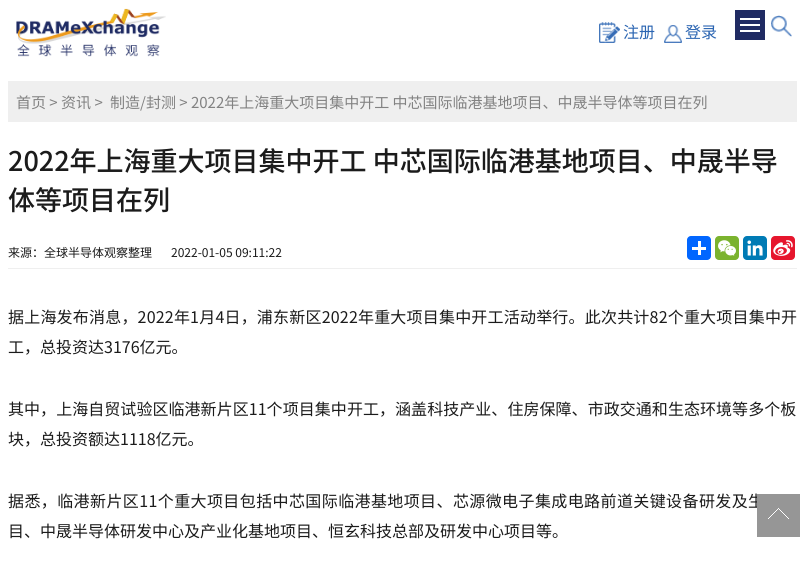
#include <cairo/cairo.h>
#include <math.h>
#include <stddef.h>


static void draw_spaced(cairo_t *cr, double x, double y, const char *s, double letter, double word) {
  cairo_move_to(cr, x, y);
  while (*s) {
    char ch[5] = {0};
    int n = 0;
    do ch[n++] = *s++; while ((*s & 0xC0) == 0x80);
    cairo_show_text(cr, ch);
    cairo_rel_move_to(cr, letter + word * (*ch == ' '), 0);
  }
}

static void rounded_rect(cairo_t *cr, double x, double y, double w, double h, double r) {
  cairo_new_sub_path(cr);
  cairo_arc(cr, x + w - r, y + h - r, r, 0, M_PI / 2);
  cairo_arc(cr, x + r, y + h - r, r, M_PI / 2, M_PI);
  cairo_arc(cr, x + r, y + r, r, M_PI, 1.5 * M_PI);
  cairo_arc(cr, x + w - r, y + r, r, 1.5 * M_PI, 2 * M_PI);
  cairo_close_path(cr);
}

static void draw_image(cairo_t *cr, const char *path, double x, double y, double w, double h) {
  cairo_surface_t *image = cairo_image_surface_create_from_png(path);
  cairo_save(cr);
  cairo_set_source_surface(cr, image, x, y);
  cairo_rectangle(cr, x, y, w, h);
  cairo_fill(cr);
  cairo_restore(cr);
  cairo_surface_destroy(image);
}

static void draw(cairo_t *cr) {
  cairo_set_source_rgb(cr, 1, 1, 1);
  cairo_paint(cr);
  draw_image(cr, "images/1.png", 16, 8, 150, 49);
  draw_image(cr, "images/2.png", 599, 22, 21, 21);
  draw_image(cr, "images/3.png", 664, 25, 18, 18);
  cairo_set_source_rgb(cr, 32 / 255.0, 43 / 255.0, 99 / 255.0);
  cairo_rectangle(cr, 735, 10, 30, 30);
  cairo_fill(cr);
  cairo_set_source_rgb(cr, 1, 1, 1);
  cairo_rectangle(cr, 740, 18, 20, 2);
  cairo_fill(cr);
  cairo_rectangle(cr, 740, 24, 20, 2);
  cairo_fill(cr);
  cairo_rectangle(cr, 740, 30, 20, 2);
  cairo_fill(cr);
  draw_image(cr, "images/4.png", 771, 15, 21, 22);
  cairo_set_source_rgb(cr, 239 / 255.0, 239 / 255.0, 239 / 255.0);
  cairo_rectangle(cr, 8, 81, 789, 41);
  cairo_fill(cr);
  cairo_rectangle(cr, 8, 268, 789, 1);
  cairo_fill(cr);
  cairo_set_source_rgb(cr, 1 / 255.0, 102 / 255.0, 1);
  rounded_rect(cr, 687, 236, 24, 24, 4);
  cairo_fill(cr);
  cairo_set_source_rgb(cr, 1, 1, 1);
  cairo_rectangle(cr, 698, 241, 3, 14);
  cairo_fill(cr);
  cairo_rectangle(cr, 692, 247, 14, 3);
  cairo_fill(cr);
  cairo_set_source_rgb(cr, 123 / 255.0, 179 / 255.0, 46 / 255.0);
  rounded_rect(cr, 715, 236, 24, 24, 4);
  cairo_fill(cr);
  draw_image(cr, "images/5.png", 718, 240, 18, 16);
  cairo_set_source_rgb(cr, 0, 123 / 255.0, 181 / 255.0);
  rounded_rect(cr, 743, 236, 24, 24, 4);
  cairo_fill(cr);
  draw_image(cr, "images/6.png", 747, 240, 16, 16);
  cairo_set_source_rgb(cr, 230 / 255.0, 22 / 255.0, 45 / 255.0);
  rounded_rect(cr, 771, 236, 24, 24, 4);
  cairo_fill(cr);
  draw_image(cr, "images/7.png", 773, 240, 20, 16);
  cairo_select_font_face(cr, "Noto Sans SC", CAIRO_FONT_SLANT_NORMAL, CAIRO_FONT_WEIGHT_NORMAL);
  cairo_set_font_size(cr, 16);
  cairo_set_source_rgb(cr, 43 / 255.0, 101 / 255.0, 178 / 255.0);
  cairo_move_to(cr, 623, 38);
  cairo_show_text(cr, "注册");
  cairo_move_to(cr, 685, 38);
  cairo_show_text(cr, "登录");
  cairo_set_font_size(cr, 15);
  cairo_set_source_rgb(cr, 130 / 255.0, 130 / 255.0, 130 / 255.0);
  cairo_move_to(cr, 16, 108);
  cairo_show_text(cr, "首页 > 资讯 >");
  cairo_move_to(cr, 110, 108);
  cairo_show_text(cr, "制造/封测 > 2022年上海重大项目集中开工 中芯国际临港基地项目、中晟半导体等项目在列");
  cairo_select_font_face(cr, "Noto Sans SC Medium", CAIRO_FONT_SLANT_NORMAL, CAIRO_FONT_WEIGHT_NORMAL);
  cairo_set_font_size(cr, 27);
  cairo_set_source_rgb(cr, 27 / 255.0, 27 / 255.0, 27 / 255.0);
  cairo_move_to(cr, 8, 171);
  cairo_show_text(cr, "2022年上海重大项目集中开工 中芯国际临港基地项目、中晟半导");
  cairo_move_to(cr, 8, 210);
  cairo_show_text(cr, "体等项目在列");
  cairo_select_font_face(cr, "Noto Sans SC", CAIRO_FONT_SLANT_NORMAL, CAIRO_FONT_WEIGHT_NORMAL);
  cairo_set_font_size(cr, 12);
  cairo_move_to(cr, 8, 257);
  cairo_show_text(cr, "来源：全球半导体观察整理");
  cairo_move_to(cr, 171, 257);
  cairo_show_text(cr, "2022-01-05 09:11:22");
  cairo_set_font_size(cr, 16);
  draw_spaced(cr, 8, 323, "据上海发布消息，2022年1月4日，浦东新区2022年重大项目集中开工活动举行。此次共计82个重大项目集中开", 0.2, 0);
  cairo_move_to(cr, 8, 353);
  cairo_show_text(cr, "工，总投资达3176亿元。");
  draw_spaced(cr, 8, 415, "其中，上海自贸试验区临港新片区11个项目集中开工，涵盖科技产业、住房保障、市政交通和生态环境等多个板", 0.05, 0);
  cairo_move_to(cr, 8, 445);
  cairo_show_text(cr, "块，总投资额达1118亿元。");
  draw_spaced(cr, 8, 507, "据悉，临港新片区11个重大项目包括中芯国际临港基地项目、芯源微电子集成电路前道关键设备研发及生", 0.4, 0);
  cairo_move_to(cr, 8, 537);
  cairo_show_text(cr, "目、中晟半导体研发中心及产业化基地项目、恒玄科技总部及研发中心项目等。");
  draw_image(cr, "images/8.png", 757, 494, 43, 43);
}

int main(void) {
  cairo_surface_t *surface = cairo_image_surface_create(CAIRO_FORMAT_RGB24, 805, 567);
  cairo_t *cr = cairo_create(surface);
  cairo_font_options_t *options = cairo_font_options_create();
  cairo_font_options_set_hint_metrics(options, CAIRO_HINT_METRICS_OFF);
  cairo_font_options_set_hint_style(options, CAIRO_HINT_STYLE_NONE);
  cairo_set_font_options(cr, options);
  cairo_set_miter_limit(cr, 4);
  draw(cr);
  cairo_surface_write_to_png(surface, "out.png");
  cairo_font_options_destroy(options);
  cairo_destroy(cr);
  cairo_surface_destroy(surface);
  return 0;
}
